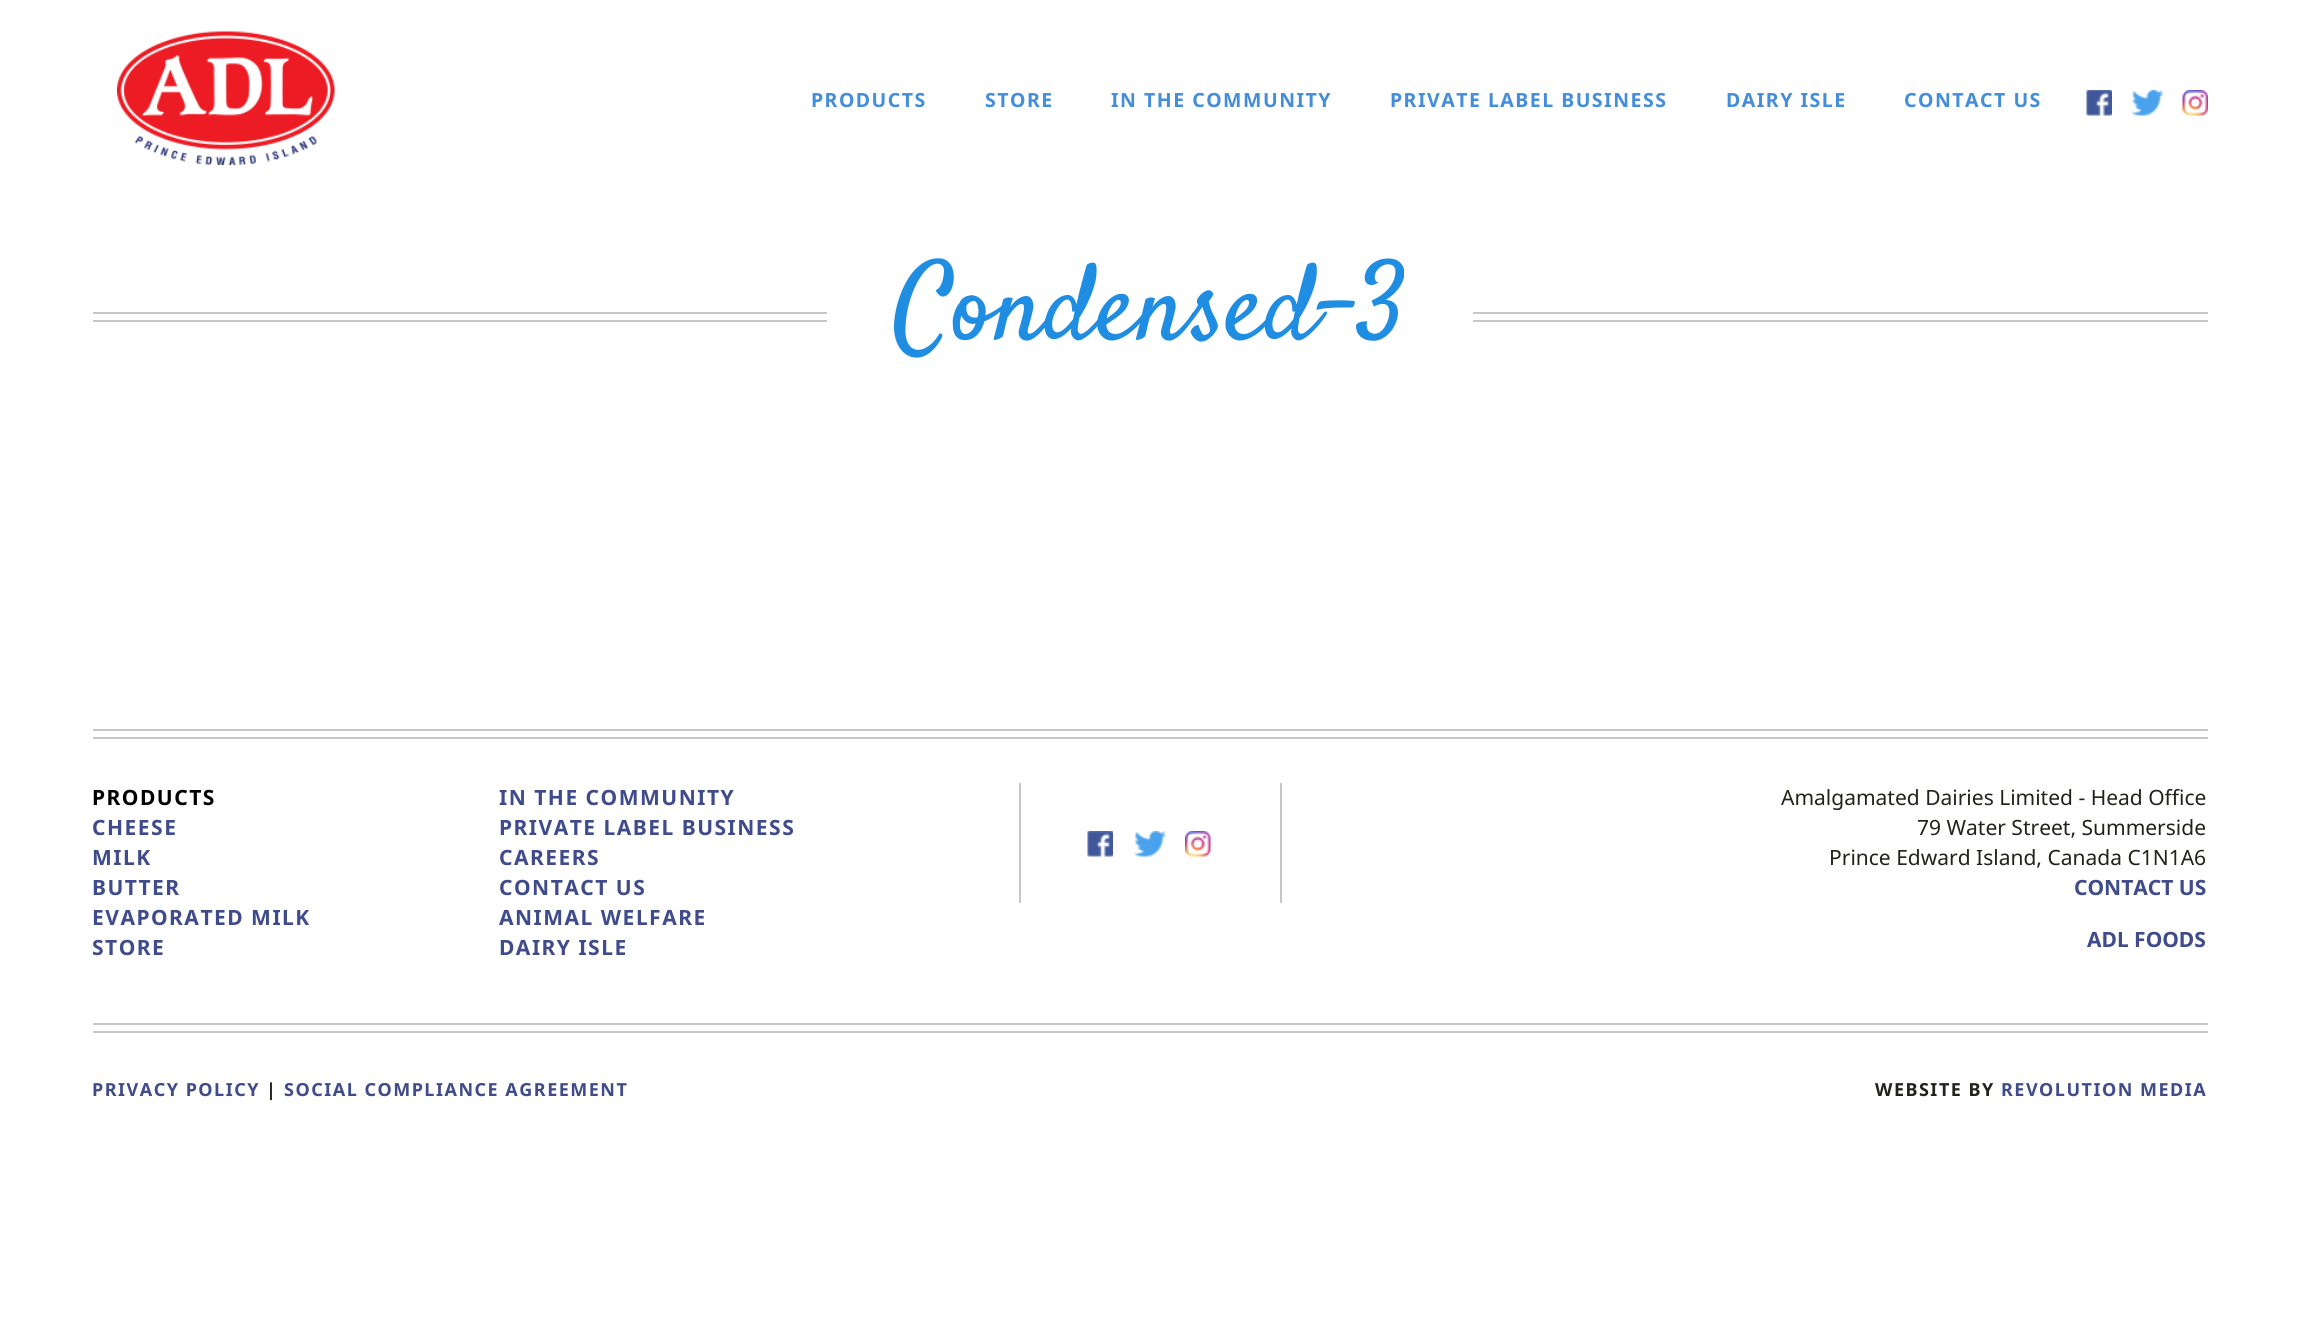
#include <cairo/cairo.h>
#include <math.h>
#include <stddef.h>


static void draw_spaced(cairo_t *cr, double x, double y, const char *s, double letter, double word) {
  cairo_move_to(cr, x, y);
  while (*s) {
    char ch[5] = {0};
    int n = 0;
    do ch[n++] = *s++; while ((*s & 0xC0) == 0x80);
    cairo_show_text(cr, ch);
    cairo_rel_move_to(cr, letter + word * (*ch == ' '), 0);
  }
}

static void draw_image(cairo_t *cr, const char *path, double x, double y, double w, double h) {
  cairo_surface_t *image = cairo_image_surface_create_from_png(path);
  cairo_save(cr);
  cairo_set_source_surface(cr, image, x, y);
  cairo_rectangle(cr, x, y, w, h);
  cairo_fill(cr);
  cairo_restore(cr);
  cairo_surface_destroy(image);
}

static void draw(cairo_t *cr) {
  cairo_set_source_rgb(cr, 1, 1, 1);
  cairo_paint(cr);
  draw_image(cr, "images/1.png", 117, 31, 218, 134);
  draw_image(cr, "images/2.png", 2086, 90, 26, 26);
  draw_image(cr, "images/3.png", 2131, 90, 32, 26);
  draw_image(cr, "images/4.png", 2182, 90, 26, 26);
  cairo_set_source_rgb(cr, 199 / 255.0, 199 / 255.0, 199 / 255.0);
  cairo_rectangle(cr, 93, 312, 734, 2);
  cairo_fill(cr);
  cairo_rectangle(cr, 93, 320, 734, 2);
  cairo_fill(cr);
  cairo_rectangle(cr, 1473, 312, 735, 2);
  cairo_fill(cr);
  cairo_rectangle(cr, 1473, 320, 735, 2);
  cairo_fill(cr);
  cairo_rectangle(cr, 93, 729, 2115, 2);
  cairo_fill(cr);
  cairo_rectangle(cr, 93, 737, 2115, 2);
  cairo_fill(cr);
  cairo_rectangle(cr, 1280, 783, 2, 120);
  cairo_fill(cr);
  cairo_rectangle(cr, 1019, 783, 2, 120);
  cairo_fill(cr);
  draw_image(cr, "images/5.png", 1087, 831, 26, 26);
  draw_image(cr, "images/6.png", 1134, 831, 32, 26);
  draw_image(cr, "images/7.png", 1185, 831, 26, 26);
  cairo_rectangle(cr, 93, 1023, 2115, 2);
  cairo_fill(cr);
  cairo_rectangle(cr, 93, 1031, 2115, 2);
  cairo_fill(cr);
  cairo_select_font_face(cr, "Noto Sans", CAIRO_FONT_SLANT_NORMAL, CAIRO_FONT_WEIGHT_BOLD);
  cairo_set_font_size(cr, 19.5);
  cairo_set_source_rgb(cr, 67 / 255.0, 141 / 255.0, 219 / 255.0);
  draw_spaced(cr, 811, 107, "PRODUCTS", 1.5, 0);
  draw_spaced(cr, 985, 107, "STORE", 1.5, 0);
  draw_spaced(cr, 1111, 107, "IN THE COMMUNITY", 1.5, 0);
  draw_spaced(cr, 1390, 107, "PRIVATE LABEL BUSINESS", 1.5, 0);
  draw_spaced(cr, 1726, 107, "DAIRY ISLE", 1.5, 0);
  draw_spaced(cr, 1904, 107, "CONTACT US", 1.5, 0);
  cairo_select_font_face(cr, "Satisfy", CAIRO_FONT_SLANT_NORMAL, CAIRO_FONT_WEIGHT_NORMAL);
  cairo_set_font_size(cr, 108);
  cairo_set_source_rgb(cr, 31 / 255.0, 141 / 255.0, 225 / 255.0);
  cairo_move_to(cr, 894, 338);
  cairo_show_text(cr, "Condensed-3");
  cairo_select_font_face(cr, "Noto Sans", CAIRO_FONT_SLANT_NORMAL, CAIRO_FONT_WEIGHT_BOLD);
  cairo_set_font_size(cr, 21);
  cairo_set_source_rgb(cr, 0, 0, 0);
  draw_spaced(cr, 92, 805, "PRODUCTS", 1.5, 0);
  cairo_set_source_rgb(cr, 63 / 255.0, 75 / 255.0, 139 / 255.0);
  draw_spaced(cr, 499, 805, "IN THE COMMUNITY", 1.5, 0);
  draw_spaced(cr, 92, 835, "CHEESE", 1.5, 0);
  draw_spaced(cr, 499, 835, "PRIVATE LABEL BUSINESS", 1.5, 0);
  draw_spaced(cr, 92, 865, "MILK", 1.5, 0);
  draw_spaced(cr, 499, 865, "CAREERS", 1.5, 0);
  draw_spaced(cr, 92, 895, "BUTTER", 1.5, 0);
  draw_spaced(cr, 499, 895, "CONTACT US", 1.5, 0);
  draw_spaced(cr, 92, 925, "EVAPORATED MILK", 1.5, 0);
  draw_spaced(cr, 499, 925, "ANIMAL WELFARE", 1.5, 0);
  draw_spaced(cr, 92, 955, "STORE", 1.5, 0);
  draw_spaced(cr, 499, 955, "DAIRY ISLE", 1.5, 0);
  cairo_select_font_face(cr, "Noto Sans", CAIRO_FONT_SLANT_NORMAL, CAIRO_FONT_WEIGHT_NORMAL);
  cairo_set_source_rgb(cr, 34 / 255.0, 33 / 255.0, 28 / 255.0);
  cairo_move_to(cr, 1781, 805);
  cairo_show_text(cr, "Amalgamated Dairies Limited - Head Office");
  cairo_move_to(cr, 1917, 835);
  cairo_show_text(cr, "79 Water Street, Summerside");
  cairo_move_to(cr, 1829, 865);
  cairo_show_text(cr, "Prince Edward Island, Canada C1N1A6");
  cairo_select_font_face(cr, "Noto Sans", CAIRO_FONT_SLANT_NORMAL, CAIRO_FONT_WEIGHT_BOLD);
  cairo_set_source_rgb(cr, 63 / 255.0, 75 / 255.0, 139 / 255.0);
  cairo_move_to(cr, 2074, 895);
  cairo_show_text(cr, "CONTACT US");
  cairo_move_to(cr, 2087, 947);
  cairo_show_text(cr, "ADL FOODS");
  cairo_set_font_size(cr, 18);
  draw_spaced(cr, 92, 1096, "PRIVACY POLICY", 1.5, 0);
  cairo_set_source_rgb(cr, 34 / 255.0, 33 / 255.0, 28 / 255.0);
  draw_spaced(cr, 266, 1096, "|", 1.5, 0);
  cairo_set_source_rgb(cr, 63 / 255.0, 75 / 255.0, 139 / 255.0);
  draw_spaced(cr, 284, 1096, "SOCIAL COMPLIANCE AGREEMENT", 1.5, 0);
  cairo_set_source_rgb(cr, 34 / 255.0, 33 / 255.0, 28 / 255.0);
  draw_spaced(cr, 1875, 1096, "WEBSITE BY", 1.5, 0);
  cairo_set_source_rgb(cr, 63 / 255.0, 75 / 255.0, 139 / 255.0);
  draw_spaced(cr, 2001, 1096, "REVOLUTION MEDIA", 1.5, 0);
}

int main(void) {
  cairo_surface_t *surface = cairo_image_surface_create(CAIRO_FORMAT_RGB24, 2299, 1331);
  cairo_t *cr = cairo_create(surface);
  cairo_font_options_t *options = cairo_font_options_create();
  cairo_font_options_set_hint_metrics(options, CAIRO_HINT_METRICS_OFF);
  cairo_font_options_set_hint_style(options, CAIRO_HINT_STYLE_NONE);
  cairo_set_font_options(cr, options);
  cairo_set_miter_limit(cr, 4);
  draw(cr);
  cairo_surface_write_to_png(surface, "out.png");
  cairo_font_options_destroy(options);
  cairo_destroy(cr);
  cairo_surface_destroy(surface);
  return 0;
}
